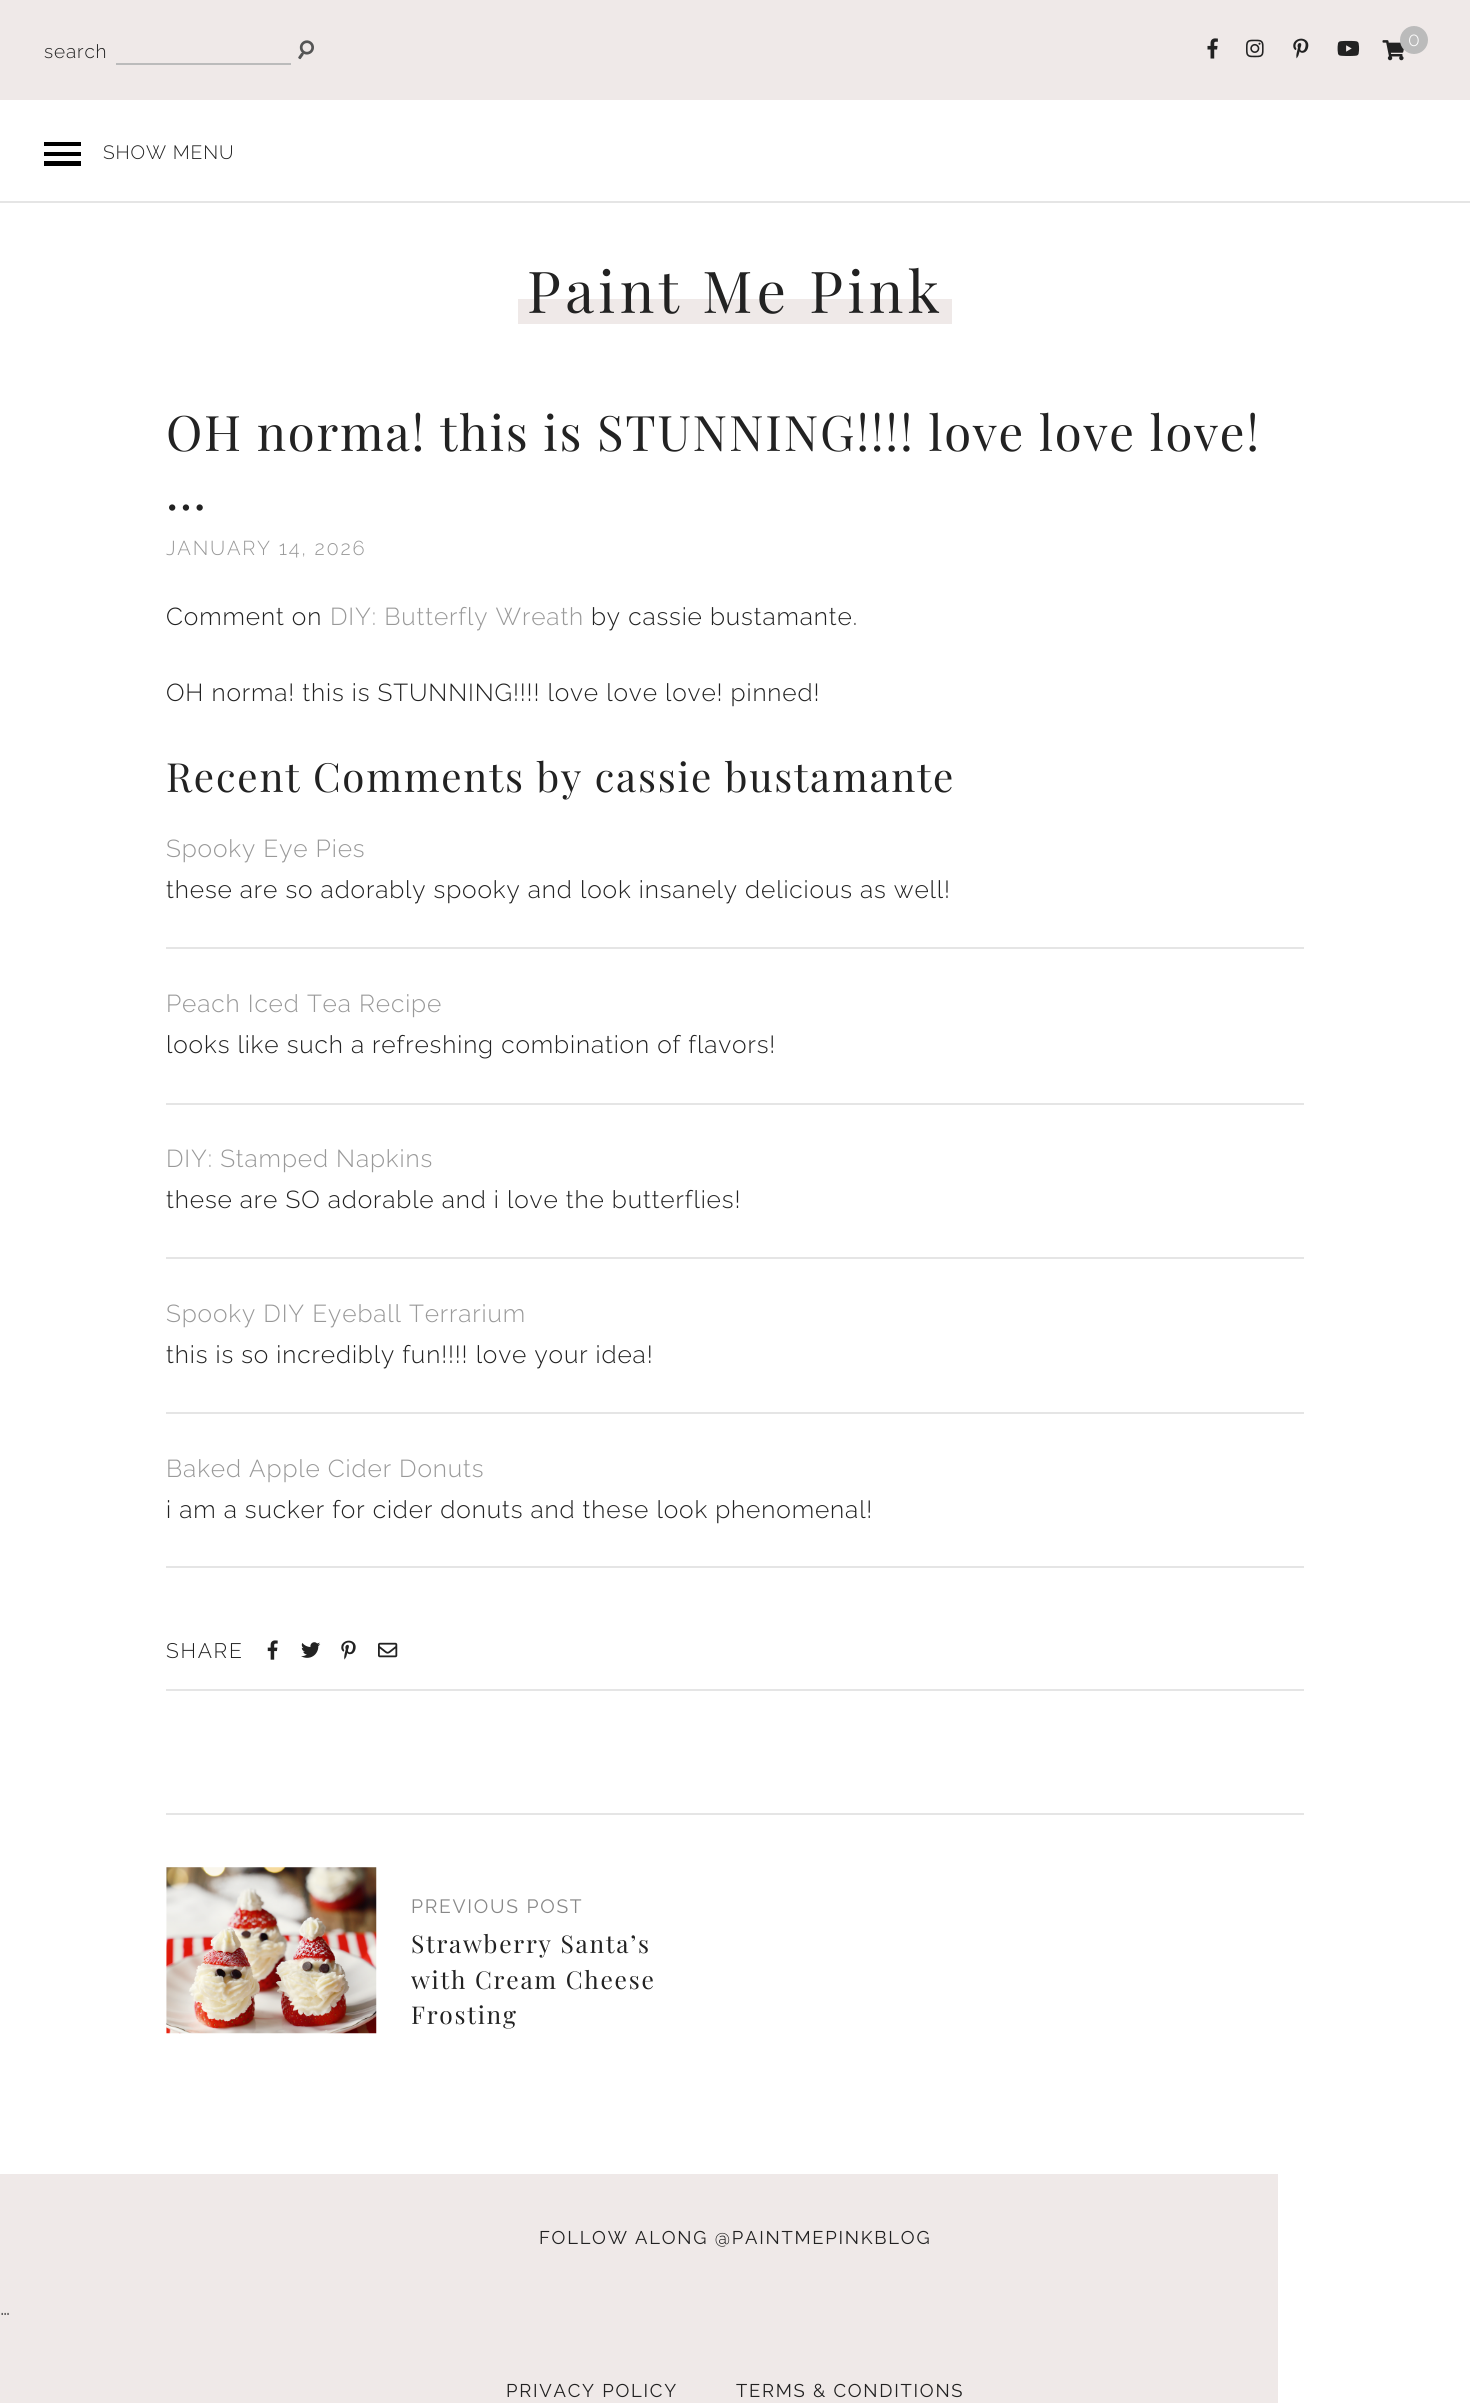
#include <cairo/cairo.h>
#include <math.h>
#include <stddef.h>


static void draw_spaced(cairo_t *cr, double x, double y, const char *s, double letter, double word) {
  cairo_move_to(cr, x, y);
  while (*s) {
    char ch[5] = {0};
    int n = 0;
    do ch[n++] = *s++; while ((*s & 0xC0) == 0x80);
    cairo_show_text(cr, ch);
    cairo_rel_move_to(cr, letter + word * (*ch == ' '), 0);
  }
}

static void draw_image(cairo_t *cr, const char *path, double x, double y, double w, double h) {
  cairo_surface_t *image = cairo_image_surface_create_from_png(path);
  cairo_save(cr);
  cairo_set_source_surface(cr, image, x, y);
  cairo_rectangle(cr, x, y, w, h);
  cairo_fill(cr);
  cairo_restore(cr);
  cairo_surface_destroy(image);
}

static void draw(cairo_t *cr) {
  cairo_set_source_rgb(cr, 1, 1, 1);
  cairo_paint(cr);
  cairo_set_source_rgb(cr, 239 / 255.0, 233 / 255.0, 232 / 255.0);
  cairo_rectangle(cr, 0, 0, 1470, 100);
  cairo_fill(cr);
  draw_image(cr, "images/1.png", 1207, 38, 11, 21);
  draw_image(cr, "images/2.png", 1246, 39, 18, 19);
  draw_image(cr, "images/3.png", 1293, 38, 16, 21);
  draw_image(cr, "images/4.png", 1337, 40, 23, 16);
  draw_image(cr, "images/5.png", 1382, 40, 22, 21);
  cairo_set_source_rgb(cr, 187 / 255.0, 187 / 255.0, 187 / 255.0);
  cairo_arc(cr, 1414, 40, 14, 0, 2 * M_PI);
  cairo_fill(cr);
  draw_image(cr, "images/6.png", 298, 40, 16, 20);
  cairo_rectangle(cr, 116, 63, 175, 2);
  cairo_fill(cr);
  cairo_set_source_rgb(cr, 229 / 255.0, 229 / 255.0, 229 / 255.0);
  cairo_rectangle(cr, 0, 201, 1470, 2);
  cairo_fill(cr);
  cairo_set_source_rgb(cr, 0, 0, 0);
  cairo_rectangle(cr, 44, 142, 37, 4);
  cairo_fill(cr);
  cairo_rectangle(cr, 44, 152, 37, 4);
  cairo_fill(cr);
  cairo_rectangle(cr, 44, 161, 37, 5);
  cairo_fill(cr);
  cairo_set_source_rgb(cr, 239 / 255.0, 233 / 255.0, 232 / 255.0);
  cairo_rectangle(cr, 518, 299, 434, 25);
  cairo_fill(cr);
  cairo_set_source_rgb(cr, 229 / 255.0, 229 / 255.0, 229 / 255.0);
  cairo_rectangle(cr, 166, 947, 1138, 2);
  cairo_fill(cr);
  cairo_rectangle(cr, 166, 1103, 1138, 2);
  cairo_fill(cr);
  cairo_rectangle(cr, 166, 1257, 1138, 2);
  cairo_fill(cr);
  cairo_rectangle(cr, 166, 1412, 1138, 2);
  cairo_fill(cr);
  cairo_rectangle(cr, 166, 1566, 1138, 2);
  cairo_fill(cr);
  cairo_rectangle(cr, 166, 1689, 1138, 2);
  cairo_fill(cr);
  draw_image(cr, "images/7.png", 267, 1640, 11, 20);
  draw_image(cr, "images/8.png", 301, 1642, 20, 16);
  draw_image(cr, "images/9.png", 341, 1640, 15, 20);
  draw_image(cr, "images/10.png", 378, 1642, 20, 16);
  cairo_rectangle(cr, 166, 1813, 1138, 2);
  cairo_fill(cr);
  draw_image(cr, "images/11.png", 166, 1867, 211, 167);
  cairo_set_source_rgb(cr, 239 / 255.0, 233 / 255.0, 232 / 255.0);
  cairo_rectangle(cr, 0, 2174, 1278, 229);
  cairo_fill(cr);
  cairo_select_font_face(cr, "Raleway Light", CAIRO_FONT_SLANT_NORMAL, CAIRO_FONT_WEIGHT_NORMAL);
  cairo_set_font_size(cr, 19.25);
  cairo_set_source_rgb(cr, 1, 1, 1);
  draw_spaced(cr, 1408, 46, "0", 0.88, 0);
  cairo_set_font_size(cr, 19);
  cairo_set_source_rgb(cr, 34 / 255.0, 34 / 255.0, 34 / 255.0);
  draw_spaced(cr, 44, 58, "search", 0.88, 0);
  cairo_set_font_size(cr, 19.25);
  draw_spaced(cr, 103, 159, "SHOW MENU", 0.88, 0);
  cairo_select_font_face(cr, "Playfair Display", CAIRO_FONT_SLANT_NORMAL, CAIRO_FONT_WEIGHT_NORMAL);
  cairo_set_font_size(cr, 57.75);
  draw_spaced(cr, 527, 313, "Paint Me Pink", 4.4, 0);
  cairo_set_font_size(cr, 49);
  draw_spaced(cr, 166, 451, "OH norma! this is STUNNING!!!! love love love!", 1.75, 0);
  draw_spaced(cr, 166, 510, "…", 1.75, 0);
  cairo_select_font_face(cr, "Raleway Light", CAIRO_FONT_SLANT_NORMAL, CAIRO_FONT_WEIGHT_NORMAL);
  cairo_set_font_size(cr, 20.1);
  cairo_set_source_rgb(cr, 153 / 255.0, 153 / 255.0, 153 / 255.0);
  draw_spaced(cr, 166, 555, "JANUARY 14, 2026", 1.75, 0);
  cairo_set_font_size(cr, 24.5);
  cairo_set_source_rgb(cr, 34 / 255.0, 34 / 255.0, 34 / 255.0);
  draw_spaced(cr, 166, 625, "Comment on", 0.88, 0);
  cairo_set_source_rgb(cr, 153 / 255.0, 153 / 255.0, 153 / 255.0);
  draw_spaced(cr, 330, 625, "DIY: Butterfly Wreath", 0.88, 0);
  cairo_set_source_rgb(cr, 34 / 255.0, 34 / 255.0, 34 / 255.0);
  draw_spaced(cr, 591, 625, "by cassie bustamante.", 0.88, 0);
  draw_spaced(cr, 166, 701, "OH norma! this is STUNNING!!!! love love love! pinned!", 0.88, 0);
  cairo_select_font_face(cr, "Playfair Display", CAIRO_FONT_SLANT_NORMAL, CAIRO_FONT_WEIGHT_NORMAL);
  cairo_set_font_size(cr, 40.25);
  draw_spaced(cr, 166, 792, "Recent Comments by cassie bustamante", 1.75, 0);
  cairo_select_font_face(cr, "Raleway Light", CAIRO_FONT_SLANT_NORMAL, CAIRO_FONT_WEIGHT_NORMAL);
  cairo_set_font_size(cr, 24.5);
  cairo_set_source_rgb(cr, 153 / 255.0, 153 / 255.0, 153 / 255.0);
  draw_spaced(cr, 166, 857, "Spooky Eye Pies", 0.88, 0);
  cairo_set_source_rgb(cr, 34 / 255.0, 34 / 255.0, 34 / 255.0);
  draw_spaced(cr, 166, 898, "these are so adorably spooky and look insanely delicious as well!", 0.88, 0);
  cairo_set_source_rgb(cr, 153 / 255.0, 153 / 255.0, 153 / 255.0);
  draw_spaced(cr, 166, 1012, "Peach Iced Tea Recipe", 0.88, 0);
  cairo_set_source_rgb(cr, 34 / 255.0, 34 / 255.0, 34 / 255.0);
  draw_spaced(cr, 166, 1053, "looks like such a refreshing combination of flavors!", 0.88, 0);
  cairo_set_source_rgb(cr, 153 / 255.0, 153 / 255.0, 153 / 255.0);
  draw_spaced(cr, 166, 1167, "DIY: Stamped Napkins", 0.88, 0);
  cairo_set_source_rgb(cr, 34 / 255.0, 34 / 255.0, 34 / 255.0);
  draw_spaced(cr, 166, 1208, "these are SO adorable and i love the butterflies!", 0.88, 0);
  cairo_set_source_rgb(cr, 153 / 255.0, 153 / 255.0, 153 / 255.0);
  draw_spaced(cr, 166, 1322, "Spooky DIY Eyeball Terrarium", 0.88, 0);
  cairo_set_source_rgb(cr, 34 / 255.0, 34 / 255.0, 34 / 255.0);
  draw_spaced(cr, 166, 1363, "this is so incredibly fun!!!! love your idea!", 0.88, 0);
  cairo_set_source_rgb(cr, 153 / 255.0, 153 / 255.0, 153 / 255.0);
  draw_spaced(cr, 166, 1477, "Baked Apple Cider Donuts", 0.88, 0);
  cairo_set_source_rgb(cr, 34 / 255.0, 34 / 255.0, 34 / 255.0);
  draw_spaced(cr, 166, 1518, "i am a sucker for cider donuts and these look phenomenal!", 0.88, 0);
  cairo_set_font_size(cr, 21);
  draw_spaced(cr, 166, 1658, "SHARE", 1.75, 0);
  cairo_select_font_face(cr, "Raleway", CAIRO_FONT_SLANT_NORMAL, CAIRO_FONT_WEIGHT_NORMAL);
  cairo_set_font_size(cr, 19.25);
  cairo_set_source_rgb(cr, 136 / 255.0, 136 / 255.0, 136 / 255.0);
  draw_spaced(cr, 411, 1913, "PREVIOUS POST", 1.75, 0);
  cairo_select_font_face(cr, "Playfair Display", CAIRO_FONT_SLANT_NORMAL, CAIRO_FONT_WEIGHT_NORMAL);
  cairo_set_font_size(cr, 24.5);
  cairo_set_source_rgb(cr, 34 / 255.0, 34 / 255.0, 34 / 255.0);
  draw_spaced(cr, 411, 1953, "Strawberry Santa’s", 1.75, 0);
  draw_spaced(cr, 411, 1989, "with Cream Cheese", 1.75, 0);
  draw_spaced(cr, 411, 2024, "Frosting", 1.75, 0);
  cairo_select_font_face(cr, "Raleway", CAIRO_FONT_SLANT_NORMAL, CAIRO_FONT_WEIGHT_NORMAL);
  cairo_set_font_size(cr, 18.4);
  draw_spaced(cr, 539, 2244, "FOLLOW ALONG @PAINTMEPINKBLOG", 1.75, 0);
  cairo_select_font_face(cr, "Raleway Light", CAIRO_FONT_SLANT_NORMAL, CAIRO_FONT_WEIGHT_NORMAL);
  cairo_set_font_size(cr, 24.5);
  draw_spaced(cr, 0, 2315, "…", 0.88, 0);
  cairo_select_font_face(cr, "Raleway", CAIRO_FONT_SLANT_NORMAL, CAIRO_FONT_WEIGHT_NORMAL);
  cairo_set_font_size(cr, 18.4);
  draw_spaced(cr, 506, 2397, "PRIVACY POLICY", 1.75, 0);
  draw_spaced(cr, 736, 2397, "TERMS & CONDITIONS", 1.75, 0);
}

int main(void) {
  cairo_surface_t *surface = cairo_image_surface_create(CAIRO_FORMAT_RGB24, 1470, 2403);
  cairo_t *cr = cairo_create(surface);
  cairo_font_options_t *options = cairo_font_options_create();
  cairo_font_options_set_hint_metrics(options, CAIRO_HINT_METRICS_OFF);
  cairo_font_options_set_hint_style(options, CAIRO_HINT_STYLE_NONE);
  cairo_set_font_options(cr, options);
  cairo_set_miter_limit(cr, 4);
  draw(cr);
  cairo_surface_write_to_png(surface, "out.png");
  cairo_font_options_destroy(options);
  cairo_destroy(cr);
  cairo_surface_destroy(surface);
  return 0;
}
